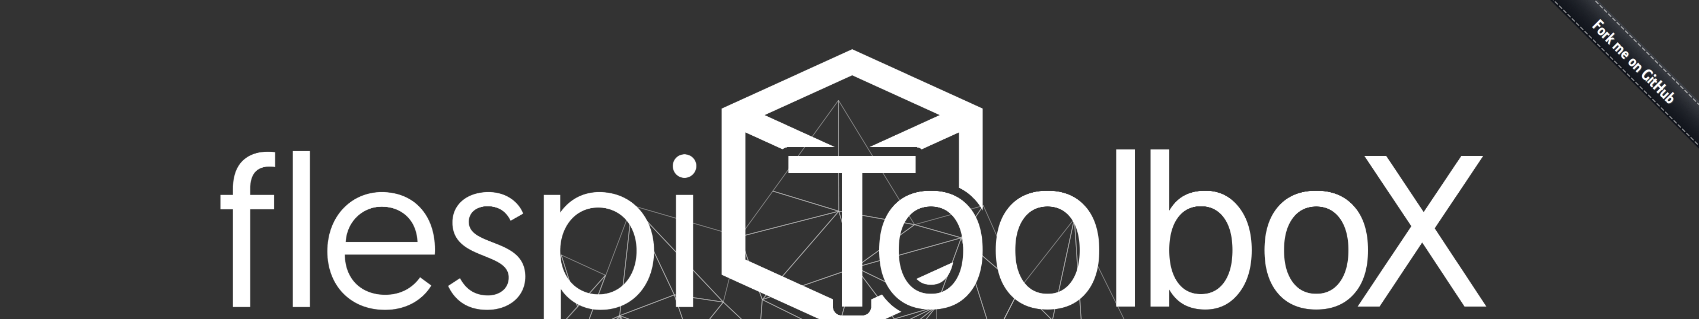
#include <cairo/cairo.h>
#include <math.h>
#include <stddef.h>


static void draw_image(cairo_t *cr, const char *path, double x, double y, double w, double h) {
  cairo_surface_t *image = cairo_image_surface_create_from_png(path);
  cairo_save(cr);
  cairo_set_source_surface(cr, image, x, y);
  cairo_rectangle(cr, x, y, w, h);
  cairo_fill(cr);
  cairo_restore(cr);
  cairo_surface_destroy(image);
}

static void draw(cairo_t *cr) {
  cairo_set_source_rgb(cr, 51 / 255.0, 51 / 255.0, 51 / 255.0);
  cairo_paint(cr);
  draw_image(cr, "images/1.png", 560, 100, 565, 219);
  draw_image(cr, "images/2.png", 220, 49, 1267, 270);
  draw_image(cr, "images/3.png", 1550, 0, 149, 149);
}

int main(void) {
  cairo_surface_t *surface = cairo_image_surface_create(CAIRO_FORMAT_RGB24, 1699, 319);
  cairo_t *cr = cairo_create(surface);
  cairo_font_options_t *options = cairo_font_options_create();
  cairo_font_options_set_hint_metrics(options, CAIRO_HINT_METRICS_OFF);
  cairo_font_options_set_hint_style(options, CAIRO_HINT_STYLE_NONE);
  cairo_set_font_options(cr, options);
  cairo_set_miter_limit(cr, 4);
  draw(cr);
  cairo_surface_write_to_png(surface, "out.png");
  cairo_font_options_destroy(options);
  cairo_destroy(cr);
  cairo_surface_destroy(surface);
  return 0;
}
